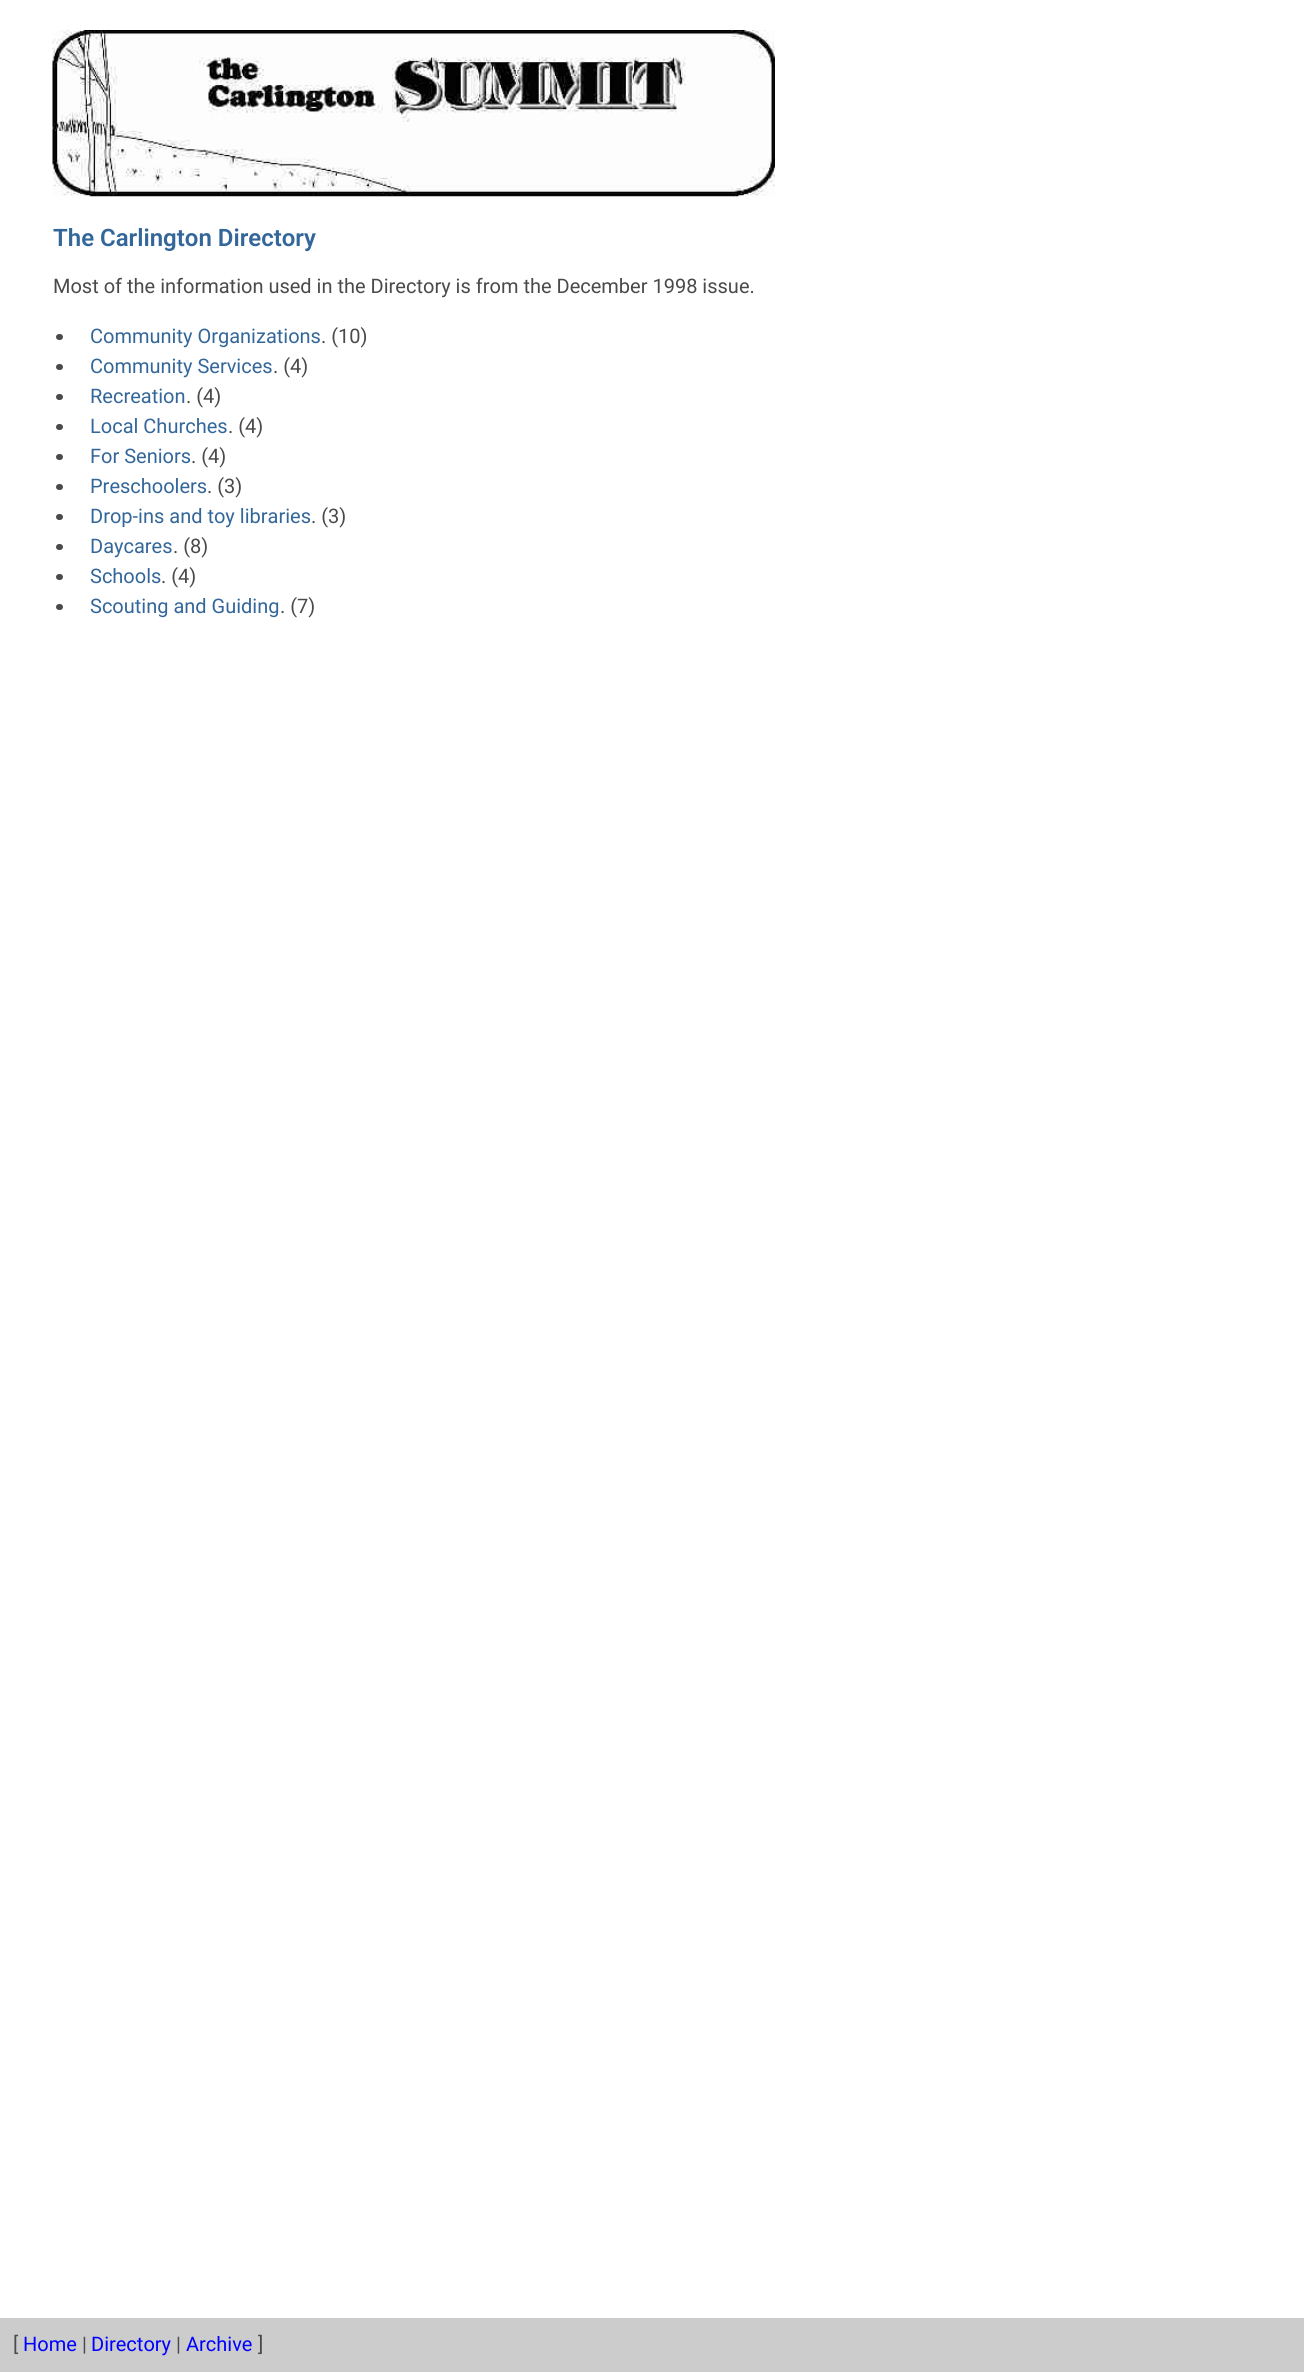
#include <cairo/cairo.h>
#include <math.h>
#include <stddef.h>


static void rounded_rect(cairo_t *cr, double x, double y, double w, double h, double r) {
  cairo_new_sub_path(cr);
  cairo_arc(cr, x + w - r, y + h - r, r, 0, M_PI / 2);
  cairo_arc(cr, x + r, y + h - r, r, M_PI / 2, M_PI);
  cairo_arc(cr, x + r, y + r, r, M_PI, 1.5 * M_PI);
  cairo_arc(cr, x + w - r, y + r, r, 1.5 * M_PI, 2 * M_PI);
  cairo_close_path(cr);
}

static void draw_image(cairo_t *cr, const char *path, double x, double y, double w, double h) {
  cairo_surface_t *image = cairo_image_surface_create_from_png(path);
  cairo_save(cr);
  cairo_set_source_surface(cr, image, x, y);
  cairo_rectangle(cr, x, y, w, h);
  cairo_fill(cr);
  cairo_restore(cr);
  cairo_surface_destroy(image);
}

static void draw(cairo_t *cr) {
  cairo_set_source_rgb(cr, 1, 1, 1);
  cairo_paint(cr);
  draw_image(cr, "images/1.png", 52, 30, 723, 167);
  cairo_set_source_rgb(cr, 74 / 255.0, 74 / 255.0, 74 / 255.0);
  rounded_rect(cr, 56, 334, 7, 6, 3);
  cairo_fill(cr);
  rounded_rect(cr, 56, 364, 7, 6, 3);
  cairo_fill(cr);
  rounded_rect(cr, 56, 394, 7, 6, 3);
  cairo_fill(cr);
  rounded_rect(cr, 56, 424, 7, 6, 3);
  cairo_fill(cr);
  rounded_rect(cr, 56, 454, 7, 6, 3);
  cairo_fill(cr);
  rounded_rect(cr, 56, 484, 7, 6, 3);
  cairo_fill(cr);
  rounded_rect(cr, 56, 514, 7, 6, 3);
  cairo_fill(cr);
  rounded_rect(cr, 56, 544, 7, 6, 3);
  cairo_fill(cr);
  rounded_rect(cr, 56, 574, 7, 6, 3);
  cairo_fill(cr);
  rounded_rect(cr, 56, 604, 7, 6, 3);
  cairo_fill(cr);
  cairo_set_source_rgb(cr, 204 / 255.0, 204 / 255.0, 204 / 255.0);
  cairo_rectangle(cr, 0, 2318, 1304, 54);
  cairo_fill(cr);
  cairo_select_font_face(cr, "Roboto SemiBold", CAIRO_FONT_SLANT_NORMAL, CAIRO_FONT_WEIGHT_NORMAL);
  cairo_set_font_size(cr, 24);
  cairo_set_source_rgb(cr, 51 / 255.0, 102 / 255.0, 153 / 255.0);
  cairo_move_to(cr, 53, 246);
  cairo_show_text(cr, "The Carlington Directory");
  cairo_select_font_face(cr, "Roboto", CAIRO_FONT_SLANT_NORMAL, CAIRO_FONT_WEIGHT_NORMAL);
  cairo_set_font_size(cr, 20);
  cairo_set_source_rgb(cr, 74 / 255.0, 74 / 255.0, 74 / 255.0);
  cairo_move_to(cr, 53, 293);
  cairo_show_text(cr, "Most of the information used in the Directory is from the December 1998 issue.");
  cairo_set_source_rgb(cr, 51 / 255.0, 102 / 255.0, 153 / 255.0);
  cairo_move_to(cr, 90, 343);
  cairo_show_text(cr, "Community Organizations");
  cairo_set_source_rgb(cr, 74 / 255.0, 74 / 255.0, 74 / 255.0);
  cairo_move_to(cr, 321, 343);
  cairo_show_text(cr, ". (10)");
  cairo_set_source_rgb(cr, 51 / 255.0, 102 / 255.0, 153 / 255.0);
  cairo_move_to(cr, 90, 373);
  cairo_show_text(cr, "Community Services");
  cairo_set_source_rgb(cr, 74 / 255.0, 74 / 255.0, 74 / 255.0);
  cairo_move_to(cr, 273, 373);
  cairo_show_text(cr, ". (4)");
  cairo_set_source_rgb(cr, 51 / 255.0, 102 / 255.0, 153 / 255.0);
  cairo_move_to(cr, 90, 403);
  cairo_show_text(cr, "Recreation");
  cairo_set_source_rgb(cr, 74 / 255.0, 74 / 255.0, 74 / 255.0);
  cairo_move_to(cr, 186, 403);
  cairo_show_text(cr, ". (4)");
  cairo_set_source_rgb(cr, 51 / 255.0, 102 / 255.0, 153 / 255.0);
  cairo_move_to(cr, 90, 433);
  cairo_show_text(cr, "Local Churches");
  cairo_set_source_rgb(cr, 74 / 255.0, 74 / 255.0, 74 / 255.0);
  cairo_move_to(cr, 228, 433);
  cairo_show_text(cr, ". (4)");
  cairo_set_source_rgb(cr, 51 / 255.0, 102 / 255.0, 153 / 255.0);
  cairo_move_to(cr, 90, 463);
  cairo_show_text(cr, "For Seniors");
  cairo_set_source_rgb(cr, 74 / 255.0, 74 / 255.0, 74 / 255.0);
  cairo_move_to(cr, 191, 463);
  cairo_show_text(cr, ". (4)");
  cairo_set_source_rgb(cr, 51 / 255.0, 102 / 255.0, 153 / 255.0);
  cairo_move_to(cr, 90, 493);
  cairo_show_text(cr, "Preschoolers");
  cairo_set_source_rgb(cr, 74 / 255.0, 74 / 255.0, 74 / 255.0);
  cairo_move_to(cr, 207, 493);
  cairo_show_text(cr, ". (3)");
  cairo_set_source_rgb(cr, 51 / 255.0, 102 / 255.0, 153 / 255.0);
  cairo_move_to(cr, 90, 523);
  cairo_show_text(cr, "Drop-ins and toy libraries");
  cairo_set_source_rgb(cr, 74 / 255.0, 74 / 255.0, 74 / 255.0);
  cairo_move_to(cr, 311, 523);
  cairo_show_text(cr, ". (3)");
  cairo_set_source_rgb(cr, 51 / 255.0, 102 / 255.0, 153 / 255.0);
  cairo_move_to(cr, 90, 553);
  cairo_show_text(cr, "Daycares");
  cairo_set_source_rgb(cr, 74 / 255.0, 74 / 255.0, 74 / 255.0);
  cairo_move_to(cr, 173, 553);
  cairo_show_text(cr, ". (8)");
  cairo_set_source_rgb(cr, 51 / 255.0, 102 / 255.0, 153 / 255.0);
  cairo_move_to(cr, 90, 583);
  cairo_show_text(cr, "Schools");
  cairo_set_source_rgb(cr, 74 / 255.0, 74 / 255.0, 74 / 255.0);
  cairo_move_to(cr, 161, 583);
  cairo_show_text(cr, ". (4)");
  cairo_set_source_rgb(cr, 51 / 255.0, 102 / 255.0, 153 / 255.0);
  cairo_move_to(cr, 90, 613);
  cairo_show_text(cr, "Scouting and Guiding");
  cairo_set_source_rgb(cr, 74 / 255.0, 74 / 255.0, 74 / 255.0);
  cairo_move_to(cr, 280, 613);
  cairo_show_text(cr, ". (7)");
  cairo_move_to(cr, 13, 2351);
  cairo_show_text(cr, "[");
  cairo_set_source_rgb(cr, 0, 0, 1);
  cairo_move_to(cr, 23, 2351);
  cairo_show_text(cr, "Home");
  cairo_set_source_rgb(cr, 74 / 255.0, 74 / 255.0, 74 / 255.0);
  cairo_move_to(cr, 82, 2351);
  cairo_show_text(cr, "|");
  cairo_set_source_rgb(cr, 0, 0, 1);
  cairo_move_to(cr, 91, 2351);
  cairo_show_text(cr, "Directory");
  cairo_set_source_rgb(cr, 74 / 255.0, 74 / 255.0, 74 / 255.0);
  cairo_move_to(cr, 176, 2351);
  cairo_show_text(cr, "|");
  cairo_set_source_rgb(cr, 0, 0, 1);
  cairo_move_to(cr, 186, 2351);
  cairo_show_text(cr, "Archive");
  cairo_set_source_rgb(cr, 74 / 255.0, 74 / 255.0, 74 / 255.0);
  cairo_move_to(cr, 258, 2351);
  cairo_show_text(cr, "]");
}

int main(void) {
  cairo_surface_t *surface = cairo_image_surface_create(CAIRO_FORMAT_RGB24, 1304, 2372);
  cairo_t *cr = cairo_create(surface);
  cairo_font_options_t *options = cairo_font_options_create();
  cairo_font_options_set_hint_metrics(options, CAIRO_HINT_METRICS_OFF);
  cairo_font_options_set_hint_style(options, CAIRO_HINT_STYLE_NONE);
  cairo_set_font_options(cr, options);
  cairo_set_miter_limit(cr, 4);
  draw(cr);
  cairo_surface_write_to_png(surface, "out.png");
  cairo_font_options_destroy(options);
  cairo_destroy(cr);
  cairo_surface_destroy(surface);
  return 0;
}
